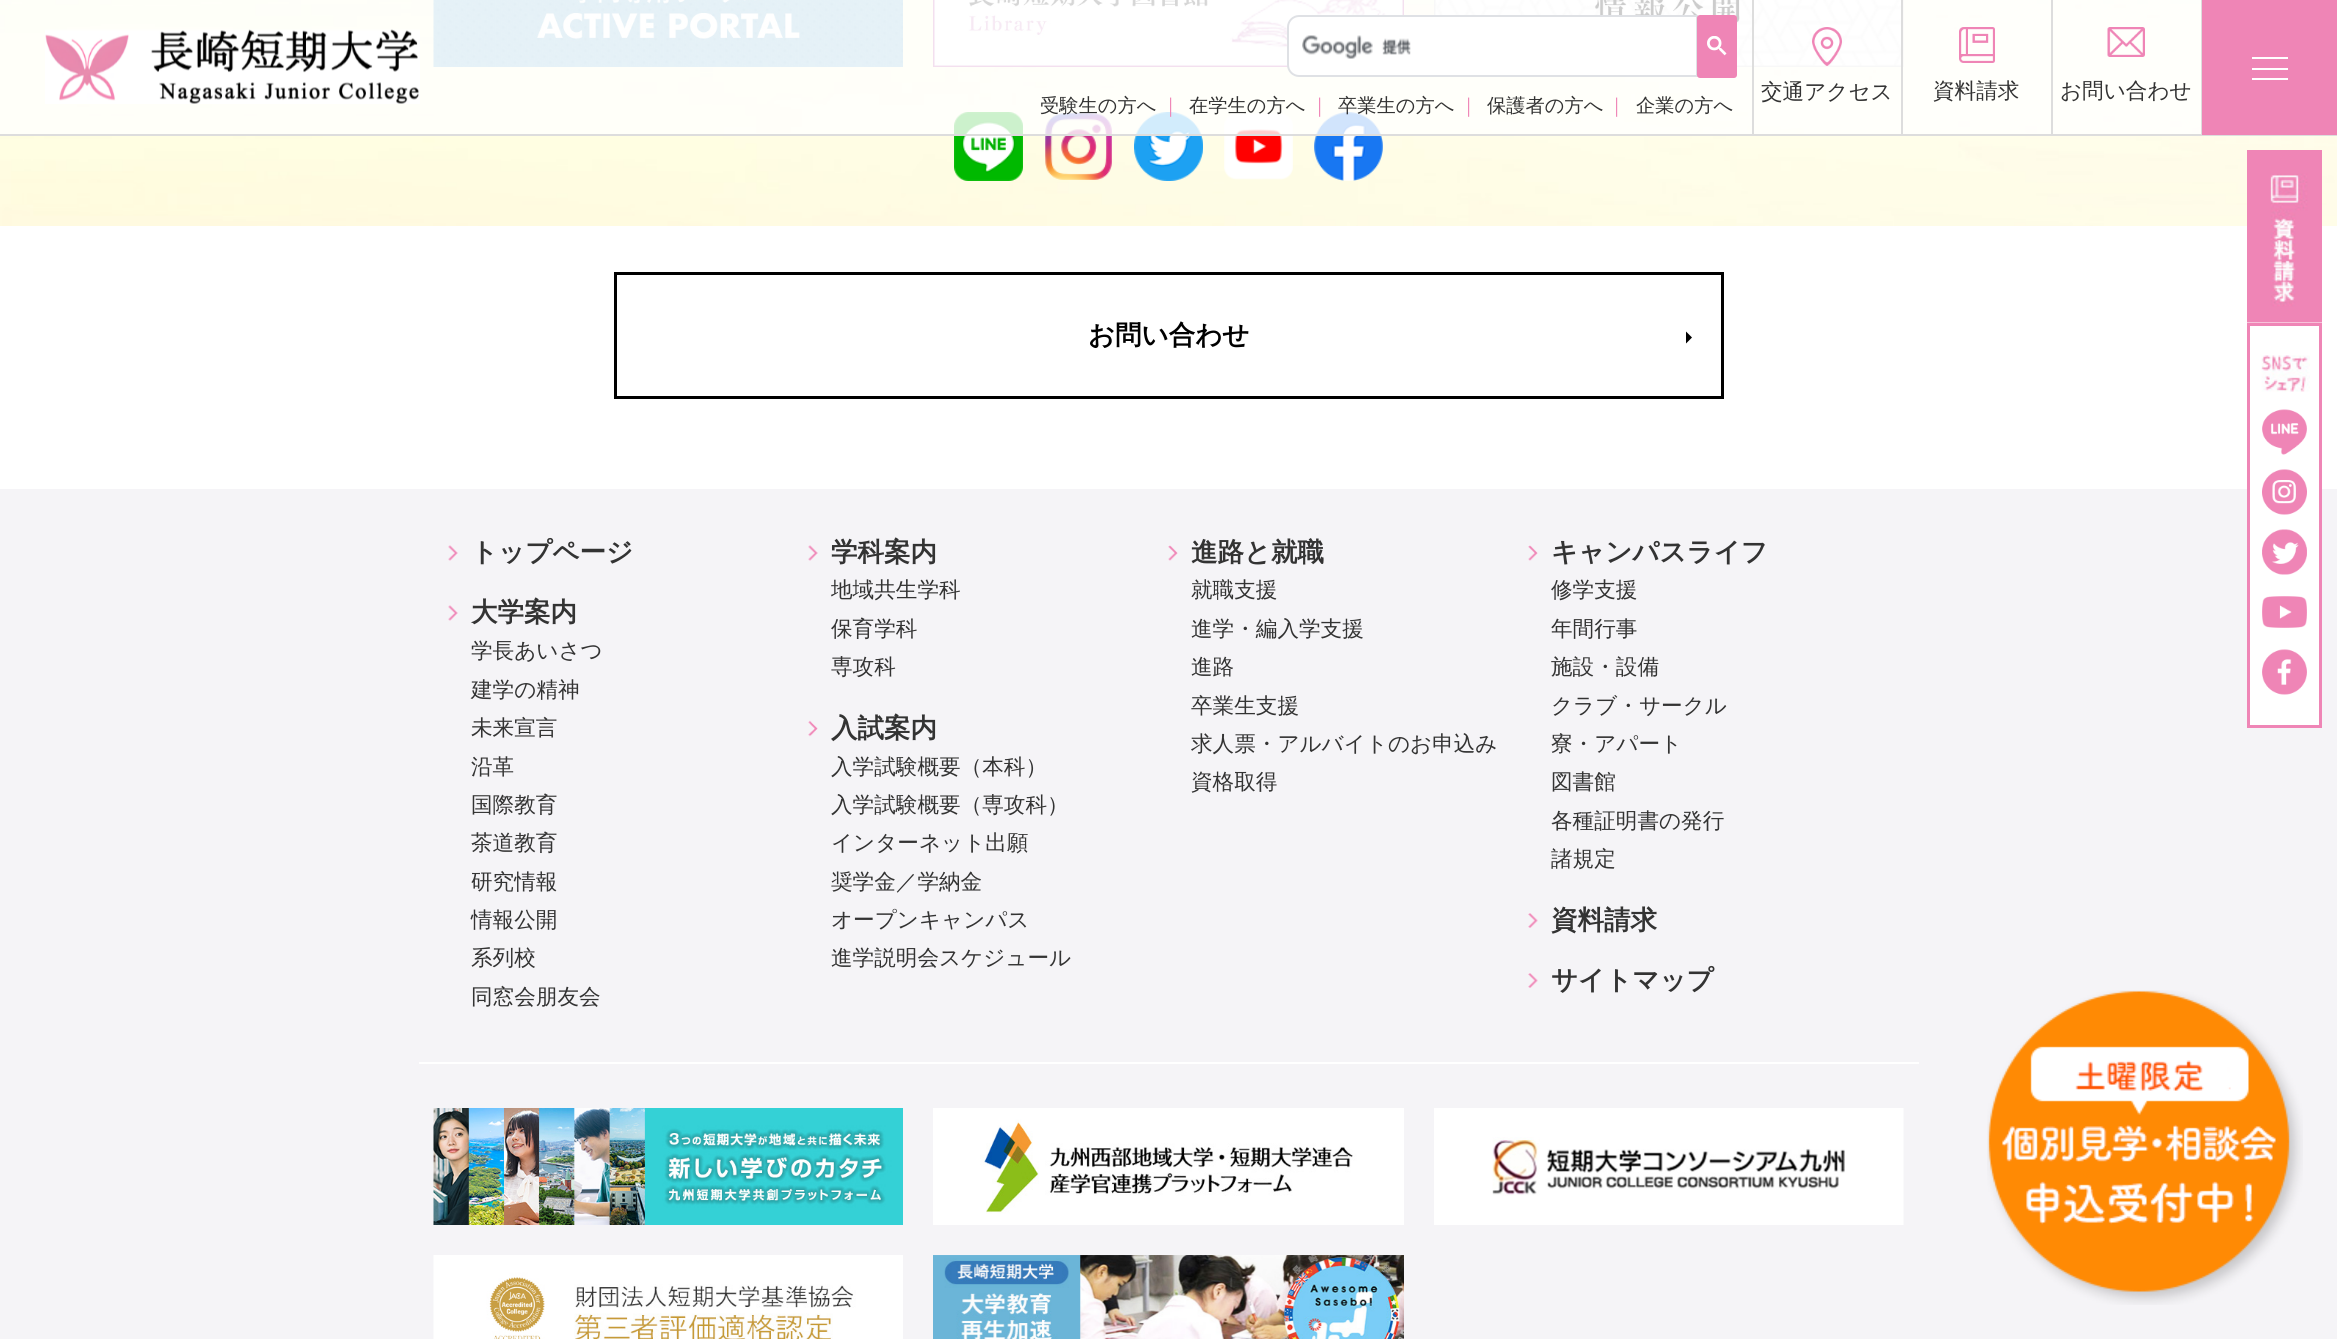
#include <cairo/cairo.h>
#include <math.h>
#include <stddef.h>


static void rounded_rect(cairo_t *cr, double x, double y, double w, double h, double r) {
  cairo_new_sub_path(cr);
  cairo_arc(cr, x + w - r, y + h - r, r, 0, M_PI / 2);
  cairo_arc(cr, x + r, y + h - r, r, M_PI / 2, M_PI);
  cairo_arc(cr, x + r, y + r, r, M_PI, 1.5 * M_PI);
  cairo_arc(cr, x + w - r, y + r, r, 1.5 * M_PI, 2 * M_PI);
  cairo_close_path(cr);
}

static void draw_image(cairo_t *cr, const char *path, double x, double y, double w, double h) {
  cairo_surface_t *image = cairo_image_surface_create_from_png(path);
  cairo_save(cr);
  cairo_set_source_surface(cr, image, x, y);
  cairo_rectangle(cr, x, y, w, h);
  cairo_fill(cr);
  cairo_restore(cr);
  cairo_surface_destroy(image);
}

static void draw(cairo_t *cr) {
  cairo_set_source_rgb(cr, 1, 1, 1);
  cairo_paint(cr);
  draw_image(cr, "images/7.png", 0, 0, 2337, 226);
  draw_image(cr, "images/8.png", 433, 0, 470, 67);
  draw_image(cr, "images/9.png", 933, 0, 471, 67);
  draw_image(cr, "images/10.png", 1434, 0, 470, 67);
  draw_image(cr, "images/11.png", 954, 112, 69, 69);
  draw_image(cr, "images/12.png", 1045, 113, 67, 67);
  draw_image(cr, "images/13.png", 1134, 112, 69, 69);
  draw_image(cr, "images/14.png", 1224, 113, 69, 67);
  draw_image(cr, "images/15.png", 1314, 112, 69, 69);
  cairo_set_source_rgba(cr, 1, 1, 1, 0.8);
  cairo_rectangle(cr, 0, 0, 2201, 134);
  cairo_fill(cr);
  cairo_set_source_rgb(cr, 221 / 255.0, 221 / 255.0, 221 / 255.0);
  cairo_rectangle(cr, 0, 134, 2337, 2);
  cairo_fill(cr);
  draw_image(cr, "images/1.png", 45, 29, 375, 75);
  cairo_rectangle(cr, 1901, 0, 2, 135);
  cairo_fill(cr);
  cairo_rectangle(cr, 1752, 0, 2, 135);
  cairo_fill(cr);
  draw_image(cr, "images/2.png", 1812, 27, 30, 39);
  cairo_rectangle(cr, 2051, 0, 2, 135);
  cairo_fill(cr);
  draw_image(cr, "images/3.png", 1959, 27, 36, 36);
  cairo_rectangle(cr, 2201, 0, 1, 135);
  cairo_fill(cr);
  draw_image(cr, "images/4.png", 2107, 27, 38, 30);
  cairo_set_source_rgb(cr, 1, 1, 1);
  cairo_new_path(cr);
  cairo_move_to(cr, 1299, 16);
  cairo_line_to(cr, 1697, 16);
  cairo_line_to(cr, 1697, 76);
  cairo_line_to(cr, 1299, 76);
  cairo_curve_to(cr, 1293, 76, 1288, 71, 1288, 65);
  cairo_line_to(cr, 1288, 27);
  cairo_curve_to(cr, 1288, 21, 1293, 16, 1299, 16);
  cairo_close_path(cr);
  cairo_fill_preserve(cr);
  cairo_set_source_rgb(cr, 223 / 255.0, 225 / 255.0, 229 / 255.0);
  cairo_stroke(cr);
  draw_image(cr, "images/5.png", 1302, 35, 109, 24);
  cairo_set_source_rgb(cr, 239 / 255.0, 133 / 255.0, 182 / 255.0);
  rounded_rect(cr, 1698, 16, 38, 61, 2);
  cairo_fill_preserve(cr);
  cairo_stroke(cr);
  draw_image(cr, "images/6.png", 1707, 36, 20, 20);
  cairo_rectangle(cr, 2202, 0, 135, 135);
  cairo_fill(cr);
  cairo_set_source_rgb(cr, 1, 1, 1);
  cairo_rectangle(cr, 2252, 57, 36, 2);
  cairo_fill(cr);
  cairo_rectangle(cr, 2252, 68, 36, 2);
  cairo_fill(cr);
  cairo_rectangle(cr, 2252, 78, 36, 2);
  cairo_fill(cr);
  cairo_rectangle(cr, 615.5, 273.5, 1107, 124);
  cairo_set_source_rgb(cr, 0, 0, 0);
  cairo_set_line_width(cr, 3);
  cairo_stroke(cr);
  cairo_new_path(cr);
  cairo_move_to(cr, 1686, 343.5);
  cairo_line_to(cr, 1686, 331.5);
  cairo_line_to(cr, 1692, 337.5);
  cairo_close_path(cr);
  cairo_fill(cr);
  cairo_set_source_rgb(cr, 245 / 255.0, 244 / 255.0, 247 / 255.0);
  cairo_rectangle(cr, 0, 489, 2337, 850);
  cairo_fill(cr);
  draw_image(cr, "images/16.png", 1987, 990, 316, 315);
  draw_image(cr, "images/17.png", 2247, 150, 75, 173);
  cairo_set_source_rgb(cr, 1, 1, 1);
  cairo_rectangle(cr, 2250, 489, 69, 236);
  cairo_fill(cr);
  cairo_rectangle(cr, 2248.5, 324.5, 72, 402);
  cairo_set_source_rgb(cr, 239 / 255.0, 133 / 255.0, 182 / 255.0);
  cairo_stroke(cr);
  draw_image(cr, "images/18.png", 2261, 355, 49, 37);
  draw_image(cr, "images/19.png", 2262, 409, 45, 46);
  draw_image(cr, "images/20.png", 2262, 469, 45, 46);
  draw_image(cr, "images/21.png", 2262, 529, 45, 46);
  draw_image(cr, "images/22.png", 2262, 596, 45, 32);
  draw_image(cr, "images/23.png", 2262, 649, 45, 46);
  draw_image(cr, "images/24.png", 448, 545, 10, 16);
  draw_image(cr, "images/24.png", 448, 605, 10, 16);
  draw_image(cr, "images/25.png", 808, 545, 10, 16);
  draw_image(cr, "images/26.png", 808, 720, 10, 17);
  draw_image(cr, "images/27.png", 1168, 545, 10, 16);
  draw_image(cr, "images/27.png", 1528, 545, 10, 16);
  draw_image(cr, "images/28.png", 1528, 913, 10, 15);
  draw_image(cr, "images/28.png", 1528, 973, 10, 15);
  cairo_set_source_rgb(cr, 1, 1, 1);
  cairo_rectangle(cr, 419, 1062, 1500, 2);
  cairo_fill(cr);
  draw_image(cr, "images/29.png", 433, 1108, 470, 117);
  draw_image(cr, "images/30.png", 933, 1108, 471, 117);
  draw_image(cr, "images/31.png", 1434, 1108, 470, 117);
  draw_image(cr, "images/32.png", 433, 1255, 470, 84);
  draw_image(cr, "images/33.png", 933, 1255, 471, 84);
  cairo_select_font_face(cr, "WenQuanYi Zen Hei Medium", CAIRO_FONT_SLANT_NORMAL, CAIRO_FONT_WEIGHT_NORMAL);
  cairo_set_font_size(cr, 21.6);
  cairo_set_source_rgb(cr, 51 / 255.0, 51 / 255.0, 51 / 255.0);
  cairo_move_to(cr, 1761, 99);
  cairo_show_text(cr, "交通アクセス");
  cairo_move_to(cr, 1933, 98);
  cairo_show_text(cr, "資料請求");
  cairo_move_to(cr, 2060, 98);
  cairo_show_text(cr, "お問い合わせ");
  cairo_set_font_size(cr, 19.25);
  cairo_move_to(cr, 1040, 112);
  cairo_show_text(cr, "受験生の方へ");
  cairo_set_source_rgb(cr, 239 / 255.0, 133 / 255.0, 182 / 255.0);
  cairo_move_to(cr, 1161, 112);
  cairo_show_text(cr, "｜");
  cairo_set_source_rgb(cr, 51 / 255.0, 51 / 255.0, 51 / 255.0);
  cairo_move_to(cr, 1189, 112);
  cairo_show_text(cr, "在学生の方へ");
  cairo_set_source_rgb(cr, 239 / 255.0, 133 / 255.0, 182 / 255.0);
  cairo_move_to(cr, 1310, 112);
  cairo_show_text(cr, "｜");
  cairo_set_source_rgb(cr, 51 / 255.0, 51 / 255.0, 51 / 255.0);
  cairo_move_to(cr, 1338, 112);
  cairo_show_text(cr, "卒業生の方へ");
  cairo_set_source_rgb(cr, 239 / 255.0, 133 / 255.0, 182 / 255.0);
  cairo_move_to(cr, 1459, 112);
  cairo_show_text(cr, "｜");
  cairo_set_source_rgb(cr, 51 / 255.0, 51 / 255.0, 51 / 255.0);
  cairo_move_to(cr, 1487, 112);
  cairo_show_text(cr, "保護者の方へ");
  cairo_set_source_rgb(cr, 239 / 255.0, 133 / 255.0, 182 / 255.0);
  cairo_move_to(cr, 1607, 112);
  cairo_show_text(cr, "｜");
  cairo_set_source_rgb(cr, 51 / 255.0, 51 / 255.0, 51 / 255.0);
  cairo_move_to(cr, 1636, 112);
  cairo_show_text(cr, "企業の方へ");
  cairo_select_font_face(cr, "WenQuanYi Zen Hei", CAIRO_FONT_SLANT_NORMAL, CAIRO_FONT_WEIGHT_BOLD);
  cairo_set_font_size(cr, 26.5);
  cairo_set_source_rgb(cr, 0, 0, 0);
  cairo_move_to(cr, 1088, 344);
  cairo_show_text(cr, "お問い合わせ");
  cairo_set_source_rgb(cr, 51 / 255.0, 51 / 255.0, 51 / 255.0);
  cairo_move_to(cr, 471, 561);
  cairo_show_text(cr, "トップページ");
  cairo_move_to(cr, 471, 621);
  cairo_show_text(cr, "大学案内");
  cairo_select_font_face(cr, "WenQuanYi Zen Hei Medium", CAIRO_FONT_SLANT_NORMAL, CAIRO_FONT_WEIGHT_NORMAL);
  cairo_set_font_size(cr, 21.6);
  cairo_move_to(cr, 471, 658);
  cairo_show_text(cr, "学長あいさつ");
  cairo_move_to(cr, 471, 697);
  cairo_show_text(cr, "建学の精神");
  cairo_move_to(cr, 471, 735);
  cairo_show_text(cr, "未来宣言");
  cairo_move_to(cr, 471, 774);
  cairo_show_text(cr, "沿革");
  cairo_move_to(cr, 471, 812);
  cairo_show_text(cr, "国際教育");
  cairo_move_to(cr, 471, 850);
  cairo_show_text(cr, "茶道教育");
  cairo_move_to(cr, 471, 889);
  cairo_show_text(cr, "研究情報");
  cairo_move_to(cr, 471, 927);
  cairo_show_text(cr, "情報公開");
  cairo_move_to(cr, 471, 965);
  cairo_show_text(cr, "系列校");
  cairo_move_to(cr, 471, 1004);
  cairo_show_text(cr, "同窓会朋友会");
  cairo_select_font_face(cr, "WenQuanYi Zen Hei", CAIRO_FONT_SLANT_NORMAL, CAIRO_FONT_WEIGHT_BOLD);
  cairo_set_font_size(cr, 26.5);
  cairo_move_to(cr, 831, 561);
  cairo_show_text(cr, "学科案内");
  cairo_select_font_face(cr, "WenQuanYi Zen Hei Medium", CAIRO_FONT_SLANT_NORMAL, CAIRO_FONT_WEIGHT_NORMAL);
  cairo_set_font_size(cr, 21.6);
  cairo_move_to(cr, 831, 597);
  cairo_show_text(cr, "地域共生学科");
  cairo_move_to(cr, 831, 636);
  cairo_show_text(cr, "保育学科");
  cairo_move_to(cr, 831, 674);
  cairo_show_text(cr, "専攻科");
  cairo_select_font_face(cr, "WenQuanYi Zen Hei", CAIRO_FONT_SLANT_NORMAL, CAIRO_FONT_WEIGHT_BOLD);
  cairo_set_font_size(cr, 26.5);
  cairo_move_to(cr, 831, 737);
  cairo_show_text(cr, "入試案内");
  cairo_select_font_face(cr, "WenQuanYi Zen Hei Medium", CAIRO_FONT_SLANT_NORMAL, CAIRO_FONT_WEIGHT_NORMAL);
  cairo_set_font_size(cr, 21.6);
  cairo_move_to(cr, 831, 774);
  cairo_show_text(cr, "入学試験概要（本科）");
  cairo_move_to(cr, 831, 812);
  cairo_show_text(cr, "入学試験概要（専攻科）");
  cairo_move_to(cr, 831, 850);
  cairo_show_text(cr, "インターネット出願");
  cairo_move_to(cr, 831, 889);
  cairo_show_text(cr, "奨学金／学納金");
  cairo_move_to(cr, 831, 927);
  cairo_show_text(cr, "オープンキャンパス");
  cairo_move_to(cr, 831, 965);
  cairo_show_text(cr, "進学説明会スケジュール");
  cairo_select_font_face(cr, "WenQuanYi Zen Hei", CAIRO_FONT_SLANT_NORMAL, CAIRO_FONT_WEIGHT_BOLD);
  cairo_set_font_size(cr, 26.5);
  cairo_move_to(cr, 1191, 561);
  cairo_show_text(cr, "進路と就職");
  cairo_select_font_face(cr, "WenQuanYi Zen Hei Medium", CAIRO_FONT_SLANT_NORMAL, CAIRO_FONT_WEIGHT_NORMAL);
  cairo_set_font_size(cr, 21.6);
  cairo_move_to(cr, 1191, 597);
  cairo_show_text(cr, "就職支援");
  cairo_move_to(cr, 1191, 636);
  cairo_show_text(cr, "進学・編入学支援");
  cairo_move_to(cr, 1191, 674);
  cairo_show_text(cr, "進路");
  cairo_move_to(cr, 1191, 713);
  cairo_show_text(cr, "卒業生支援");
  cairo_move_to(cr, 1191, 751);
  cairo_show_text(cr, "求人票・アルバイトのお申込み");
  cairo_move_to(cr, 1191, 789);
  cairo_show_text(cr, "資格取得");
  cairo_select_font_face(cr, "WenQuanYi Zen Hei", CAIRO_FONT_SLANT_NORMAL, CAIRO_FONT_WEIGHT_BOLD);
  cairo_set_font_size(cr, 26.5);
  cairo_move_to(cr, 1551, 561);
  cairo_show_text(cr, "キャンパスライフ");
  cairo_select_font_face(cr, "WenQuanYi Zen Hei Medium", CAIRO_FONT_SLANT_NORMAL, CAIRO_FONT_WEIGHT_NORMAL);
  cairo_set_font_size(cr, 21.6);
  cairo_move_to(cr, 1551, 597);
  cairo_show_text(cr, "修学支援");
  cairo_move_to(cr, 1551, 636);
  cairo_show_text(cr, "年間行事");
  cairo_move_to(cr, 1551, 674);
  cairo_show_text(cr, "施設・設備");
  cairo_move_to(cr, 1551, 713);
  cairo_show_text(cr, "クラブ・サークル");
  cairo_move_to(cr, 1551, 751);
  cairo_show_text(cr, "寮・アパート");
  cairo_move_to(cr, 1551, 789);
  cairo_show_text(cr, "図書館");
  cairo_move_to(cr, 1551, 828);
  cairo_show_text(cr, "各種証明書の発行");
  cairo_move_to(cr, 1551, 866);
  cairo_show_text(cr, "諸規定");
  cairo_select_font_face(cr, "WenQuanYi Zen Hei", CAIRO_FONT_SLANT_NORMAL, CAIRO_FONT_WEIGHT_BOLD);
  cairo_set_font_size(cr, 26.5);
  cairo_move_to(cr, 1551, 929);
  cairo_show_text(cr, "資料請求");
  cairo_move_to(cr, 1551, 989);
  cairo_show_text(cr, "サイトマップ");
}

int main(void) {
  cairo_surface_t *surface = cairo_image_surface_create(CAIRO_FORMAT_RGB24, 2337, 1339);
  cairo_t *cr = cairo_create(surface);
  cairo_font_options_t *options = cairo_font_options_create();
  cairo_font_options_set_hint_metrics(options, CAIRO_HINT_METRICS_OFF);
  cairo_font_options_set_hint_style(options, CAIRO_HINT_STYLE_NONE);
  cairo_set_font_options(cr, options);
  cairo_set_miter_limit(cr, 4);
  draw(cr);
  cairo_surface_write_to_png(surface, "out.png");
  cairo_font_options_destroy(options);
  cairo_destroy(cr);
  cairo_surface_destroy(surface);
  return 0;
}
